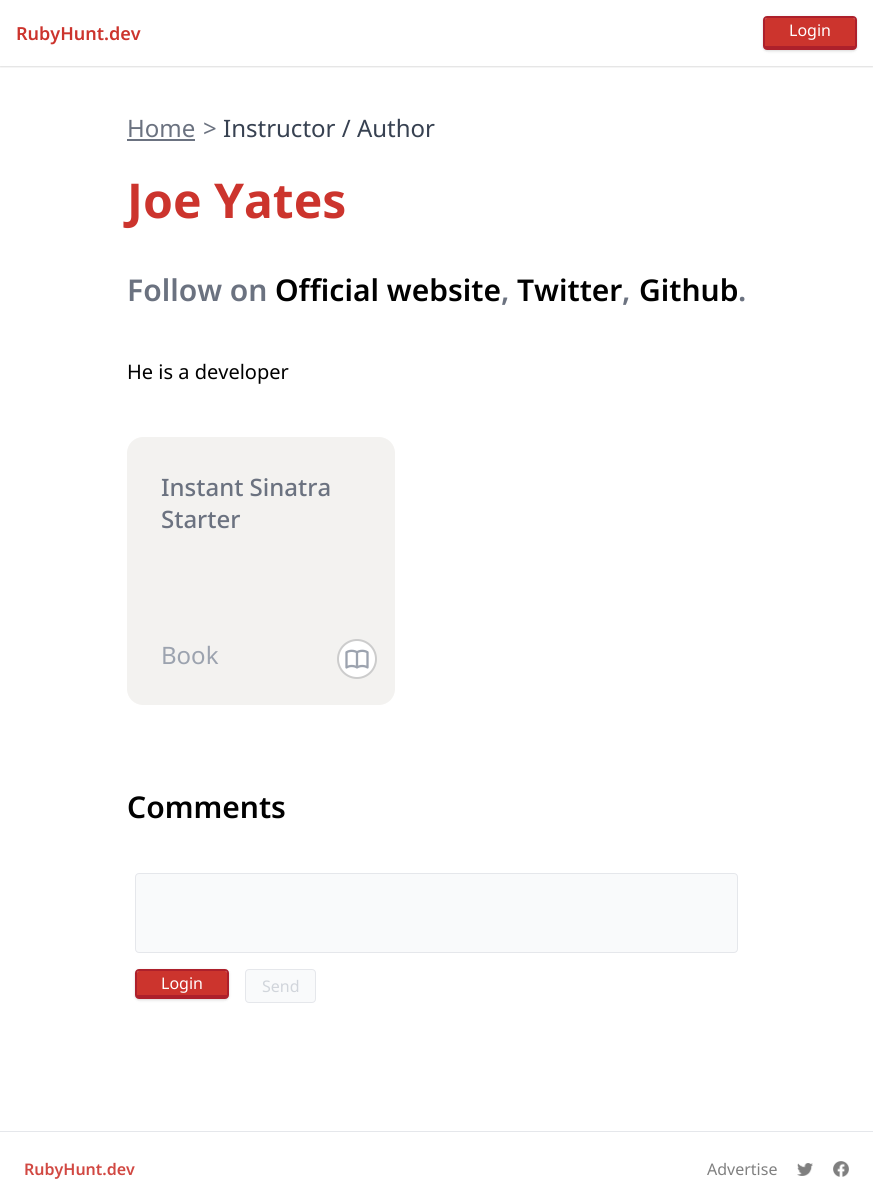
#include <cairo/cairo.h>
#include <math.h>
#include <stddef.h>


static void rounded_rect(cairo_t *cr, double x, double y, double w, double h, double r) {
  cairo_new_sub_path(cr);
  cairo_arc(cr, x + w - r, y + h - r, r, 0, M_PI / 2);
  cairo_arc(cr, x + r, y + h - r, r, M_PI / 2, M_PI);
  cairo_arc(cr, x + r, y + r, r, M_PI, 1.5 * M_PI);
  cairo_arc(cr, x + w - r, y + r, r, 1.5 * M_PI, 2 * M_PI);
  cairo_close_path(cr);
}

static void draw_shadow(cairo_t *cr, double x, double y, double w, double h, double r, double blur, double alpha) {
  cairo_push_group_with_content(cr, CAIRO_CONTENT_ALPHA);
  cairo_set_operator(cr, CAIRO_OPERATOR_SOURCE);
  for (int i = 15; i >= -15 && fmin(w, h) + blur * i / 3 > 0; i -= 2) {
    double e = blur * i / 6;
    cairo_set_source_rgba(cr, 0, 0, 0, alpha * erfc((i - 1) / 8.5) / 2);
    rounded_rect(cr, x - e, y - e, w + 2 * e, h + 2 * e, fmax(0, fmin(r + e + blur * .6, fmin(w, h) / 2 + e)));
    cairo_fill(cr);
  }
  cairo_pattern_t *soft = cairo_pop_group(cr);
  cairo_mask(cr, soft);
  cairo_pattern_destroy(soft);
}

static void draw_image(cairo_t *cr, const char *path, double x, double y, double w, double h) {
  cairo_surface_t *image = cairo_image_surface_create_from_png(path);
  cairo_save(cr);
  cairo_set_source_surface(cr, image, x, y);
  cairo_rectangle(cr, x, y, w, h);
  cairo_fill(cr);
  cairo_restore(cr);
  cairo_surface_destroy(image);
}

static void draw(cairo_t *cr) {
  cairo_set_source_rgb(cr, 1, 1, 1);
  cairo_paint(cr);
  cairo_save(cr);
  cairo_rectangle(cr, 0, 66, 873, 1);
  cairo_clip(cr);
  cairo_set_source_rgb(cr, 0, 0, 0);
  draw_shadow(cr, 0, 1, 873, 66, 0, 1, 0.06);
  cairo_restore(cr);
  cairo_save(cr);
  cairo_rectangle(cr, 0, 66, 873, 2);
  cairo_clip(cr);
  cairo_set_source_rgb(cr, 0, 0, 0);
  draw_shadow(cr, 0, 1, 873, 66, 0, 1.5, 0.1);
  cairo_restore(cr);
  cairo_set_source_rgb(cr, 0, 0, 0);
  draw_shadow(cr, 763, 17, 94, 34, 4, 1, 0.06);
  draw_shadow(cr, 763, 17, 94, 34, 4, 1.5, 0.1);
  cairo_set_source_rgb(cr, 204 / 255.0, 52 / 255.0, 45 / 255.0);
  cairo_new_path(cr);
  cairo_move_to(cr, 767, 18);
  cairo_line_to(cr, 853, 18);
  cairo_curve_to(cr, 854, 18, 855, 19, 855, 20);
  cairo_line_to(cr, 855, 46);
  cairo_line_to(cr, 765, 46);
  cairo_line_to(cr, 765, 20);
  cairo_curve_to(cr, 765, 19, 766, 18, 767, 18);
  cairo_close_path(cr);
  cairo_fill(cr);
  rounded_rect(cr, 764, 17, 92, 32, 3);
  cairo_set_source_rgb(cr, 173 / 255.0, 32 / 255.0, 43 / 255.0);
  cairo_stroke(cr);
  cairo_rectangle(cr, 765, 46, 90, 2);
  cairo_fill(cr);
  cairo_set_source_rgb(cr, 107 / 255.0, 114 / 255.0, 128 / 255.0);
  cairo_rectangle(cr, 127, 139, 68, 2);
  cairo_fill(cr);
  cairo_set_source_rgb(cr, 243 / 255.0, 242 / 255.0, 240 / 255.0);
  rounded_rect(cr, 128, 438, 266, 266, 15);
  cairo_fill_preserve(cr);
  cairo_stroke(cr);
  cairo_set_source_rgb(cr, 1, 1, 1);
  cairo_arc(cr, 357, 659, 19, 0, 2 * M_PI);
  cairo_fill_preserve(cr);
  cairo_set_source_rgb(cr, 204 / 255.0, 204 / 255.0, 204 / 255.0);
  cairo_stroke(cr);
  draw_image(cr, "images/1.png", 345, 649, 24, 20);
  cairo_set_source_rgb(cr, 249 / 255.0, 250 / 255.0, 251 / 255.0);
  rounded_rect(cr, 135.5, 873.5, 602, 79, 3.5);
  cairo_fill_preserve(cr);
  cairo_set_source_rgb(cr, 229 / 255.0, 231 / 255.0, 235 / 255.0);
  cairo_set_line_width(cr, 1);
  cairo_stroke(cr);
  cairo_set_source_rgb(cr, 0, 0, 0);
  draw_shadow(cr, 135, 970, 94, 30, 4, 1, 0.06);
  draw_shadow(cr, 135, 970, 94, 30, 4, 1.5, 0.1);
  cairo_set_source_rgb(cr, 204 / 255.0, 52 / 255.0, 45 / 255.0);
  cairo_new_path(cr);
  cairo_move_to(cr, 139, 971);
  cairo_line_to(cr, 225, 971);
  cairo_curve_to(cr, 226, 971, 227, 972, 227, 973);
  cairo_line_to(cr, 227, 995);
  cairo_line_to(cr, 137, 995);
  cairo_line_to(cr, 137, 973);
  cairo_curve_to(cr, 137, 972, 138, 971, 139, 971);
  cairo_close_path(cr);
  cairo_fill(cr);
  rounded_rect(cr, 136, 970, 92, 28, 3);
  cairo_set_source_rgb(cr, 173 / 255.0, 32 / 255.0, 43 / 255.0);
  cairo_set_line_width(cr, 2);
  cairo_stroke(cr);
  cairo_rectangle(cr, 137, 995, 90, 2);
  cairo_fill(cr);
  cairo_set_source_rgb(cr, 249 / 255.0, 250 / 255.0, 251 / 255.0);
  rounded_rect(cr, 245.5, 969.5, 70, 33, 3.5);
  cairo_fill_preserve(cr);
  cairo_set_source_rgb(cr, 229 / 255.0, 231 / 255.0, 235 / 255.0);
  cairo_set_line_width(cr, 1);
  cairo_stroke(cr);
  cairo_rectangle(cr, 0, 1131, 873, 1);
  cairo_fill(cr);
  draw_image(cr, "images/2.png", 797, 1163, 16, 13);
  draw_image(cr, "images/3.png", 833, 1161, 16, 16);
  cairo_select_font_face(cr, "Noto Sans SemiBold", CAIRO_FONT_SLANT_NORMAL, CAIRO_FONT_WEIGHT_NORMAL);
  cairo_set_font_size(cr, 18);
  cairo_set_source_rgb(cr, 204 / 255.0, 52 / 255.0, 45 / 255.0);
  cairo_move_to(cr, 16, 40);
  cairo_show_text(cr, "RubyHunt.dev");
  cairo_select_font_face(cr, "Noto Sans", CAIRO_FONT_SLANT_NORMAL, CAIRO_FONT_WEIGHT_NORMAL);
  cairo_set_font_size(cr, 16);
  cairo_set_source_rgb(cr, 1, 1, 1);
  cairo_move_to(cr, 789, 36);
  cairo_show_text(cr, "Login");
  cairo_set_font_size(cr, 24);
  cairo_set_source_rgb(cr, 107 / 255.0, 114 / 255.0, 128 / 255.0);
  cairo_move_to(cr, 127, 137);
  cairo_show_text(cr, "Home");
  cairo_move_to(cr, 203, 137);
  cairo_show_text(cr, ">");
  cairo_set_source_rgb(cr, 55 / 255.0, 65 / 255.0, 81 / 255.0);
  cairo_move_to(cr, 223, 137);
  cairo_show_text(cr, "Instructor / Author");
  cairo_select_font_face(cr, "Noto Sans", CAIRO_FONT_SLANT_NORMAL, CAIRO_FONT_WEIGHT_BOLD);
  cairo_set_font_size(cr, 48);
  cairo_set_source_rgb(cr, 204 / 255.0, 52 / 255.0, 45 / 255.0);
  cairo_move_to(cr, 127, 218);
  cairo_show_text(cr, "Joe Yates");
  cairo_select_font_face(cr, "Noto Sans SemiBold", CAIRO_FONT_SLANT_NORMAL, CAIRO_FONT_WEIGHT_NORMAL);
  cairo_set_font_size(cr, 30);
  cairo_set_source_rgb(cr, 107 / 255.0, 114 / 255.0, 128 / 255.0);
  cairo_move_to(cr, 127, 301);
  cairo_show_text(cr, "Follow on");
  cairo_set_source_rgb(cr, 0, 0, 0);
  cairo_move_to(cr, 275, 301);
  cairo_show_text(cr, "Official website");
  cairo_set_source_rgb(cr, 107 / 255.0, 114 / 255.0, 128 / 255.0);
  cairo_move_to(cr, 501, 301);
  cairo_show_text(cr, ",");
  cairo_set_source_rgb(cr, 0, 0, 0);
  cairo_move_to(cr, 517, 301);
  cairo_show_text(cr, "Twitter");
  cairo_set_source_rgb(cr, 107 / 255.0, 114 / 255.0, 128 / 255.0);
  cairo_move_to(cr, 622, 301);
  cairo_show_text(cr, ",");
  cairo_set_source_rgb(cr, 0, 0, 0);
  cairo_move_to(cr, 639, 301);
  cairo_show_text(cr, "Github");
  cairo_set_source_rgb(cr, 107 / 255.0, 114 / 255.0, 128 / 255.0);
  cairo_move_to(cr, 738, 301);
  cairo_show_text(cr, ".");
  cairo_select_font_face(cr, "Noto Sans", CAIRO_FONT_SLANT_NORMAL, CAIRO_FONT_WEIGHT_NORMAL);
  cairo_set_font_size(cr, 20);
  cairo_set_source_rgb(cr, 0, 0, 0);
  cairo_move_to(cr, 127, 379);
  cairo_show_text(cr, "He is a developer");
  cairo_select_font_face(cr, "Noto Sans Medium", CAIRO_FONT_SLANT_NORMAL, CAIRO_FONT_WEIGHT_NORMAL);
  cairo_set_font_size(cr, 24);
  cairo_set_source_rgb(cr, 107 / 255.0, 114 / 255.0, 128 / 255.0);
  cairo_move_to(cr, 161, 496);
  cairo_show_text(cr, "Instant Sinatra");
  cairo_move_to(cr, 161, 528);
  cairo_show_text(cr, "Starter");
  cairo_select_font_face(cr, "Noto Sans", CAIRO_FONT_SLANT_NORMAL, CAIRO_FONT_WEIGHT_NORMAL);
  cairo_set_source_rgb(cr, 156 / 255.0, 163 / 255.0, 175 / 255.0);
  cairo_move_to(cr, 161, 664);
  cairo_show_text(cr, "Book");
  cairo_select_font_face(cr, "Noto Sans SemiBold", CAIRO_FONT_SLANT_NORMAL, CAIRO_FONT_WEIGHT_NORMAL);
  cairo_set_font_size(cr, 30);
  cairo_set_source_rgb(cr, 0, 0, 0);
  cairo_move_to(cr, 127, 818);
  cairo_show_text(cr, "Comments");
  cairo_select_font_face(cr, "Noto Sans", CAIRO_FONT_SLANT_NORMAL, CAIRO_FONT_WEIGHT_NORMAL);
  cairo_set_font_size(cr, 16);
  cairo_set_source_rgb(cr, 1, 1, 1);
  cairo_move_to(cr, 161, 989);
  cairo_show_text(cr, "Login");
  cairo_set_source_rgb(cr, 209 / 255.0, 213 / 255.0, 219 / 255.0);
  cairo_move_to(cr, 262, 992);
  cairo_show_text(cr, "Send");
  cairo_select_font_face(cr, "Noto Sans SemiBold", CAIRO_FONT_SLANT_NORMAL, CAIRO_FONT_WEIGHT_NORMAL);
  cairo_set_source_rgb(cr, 209 / 255.0, 72 / 255.0, 66 / 255.0);
  cairo_move_to(cr, 24, 1175);
  cairo_show_text(cr, "RubyHunt.dev");
  cairo_select_font_face(cr, "Noto Sans", CAIRO_FONT_SLANT_NORMAL, CAIRO_FONT_WEIGHT_NORMAL);
  cairo_set_source_rgb(cr, 128 / 255.0, 128 / 255.0, 128 / 255.0);
  cairo_move_to(cr, 707, 1175);
  cairo_show_text(cr, "Advertise");
}

int main(void) {
  cairo_surface_t *surface = cairo_image_surface_create(CAIRO_FORMAT_RGB24, 873, 1188);
  cairo_t *cr = cairo_create(surface);
  cairo_font_options_t *options = cairo_font_options_create();
  cairo_font_options_set_hint_metrics(options, CAIRO_HINT_METRICS_OFF);
  cairo_font_options_set_hint_style(options, CAIRO_HINT_STYLE_NONE);
  cairo_set_font_options(cr, options);
  cairo_set_miter_limit(cr, 4);
  draw(cr);
  cairo_surface_write_to_png(surface, "out.png");
  cairo_font_options_destroy(options);
  cairo_destroy(cr);
  cairo_surface_destroy(surface);
  return 0;
}
